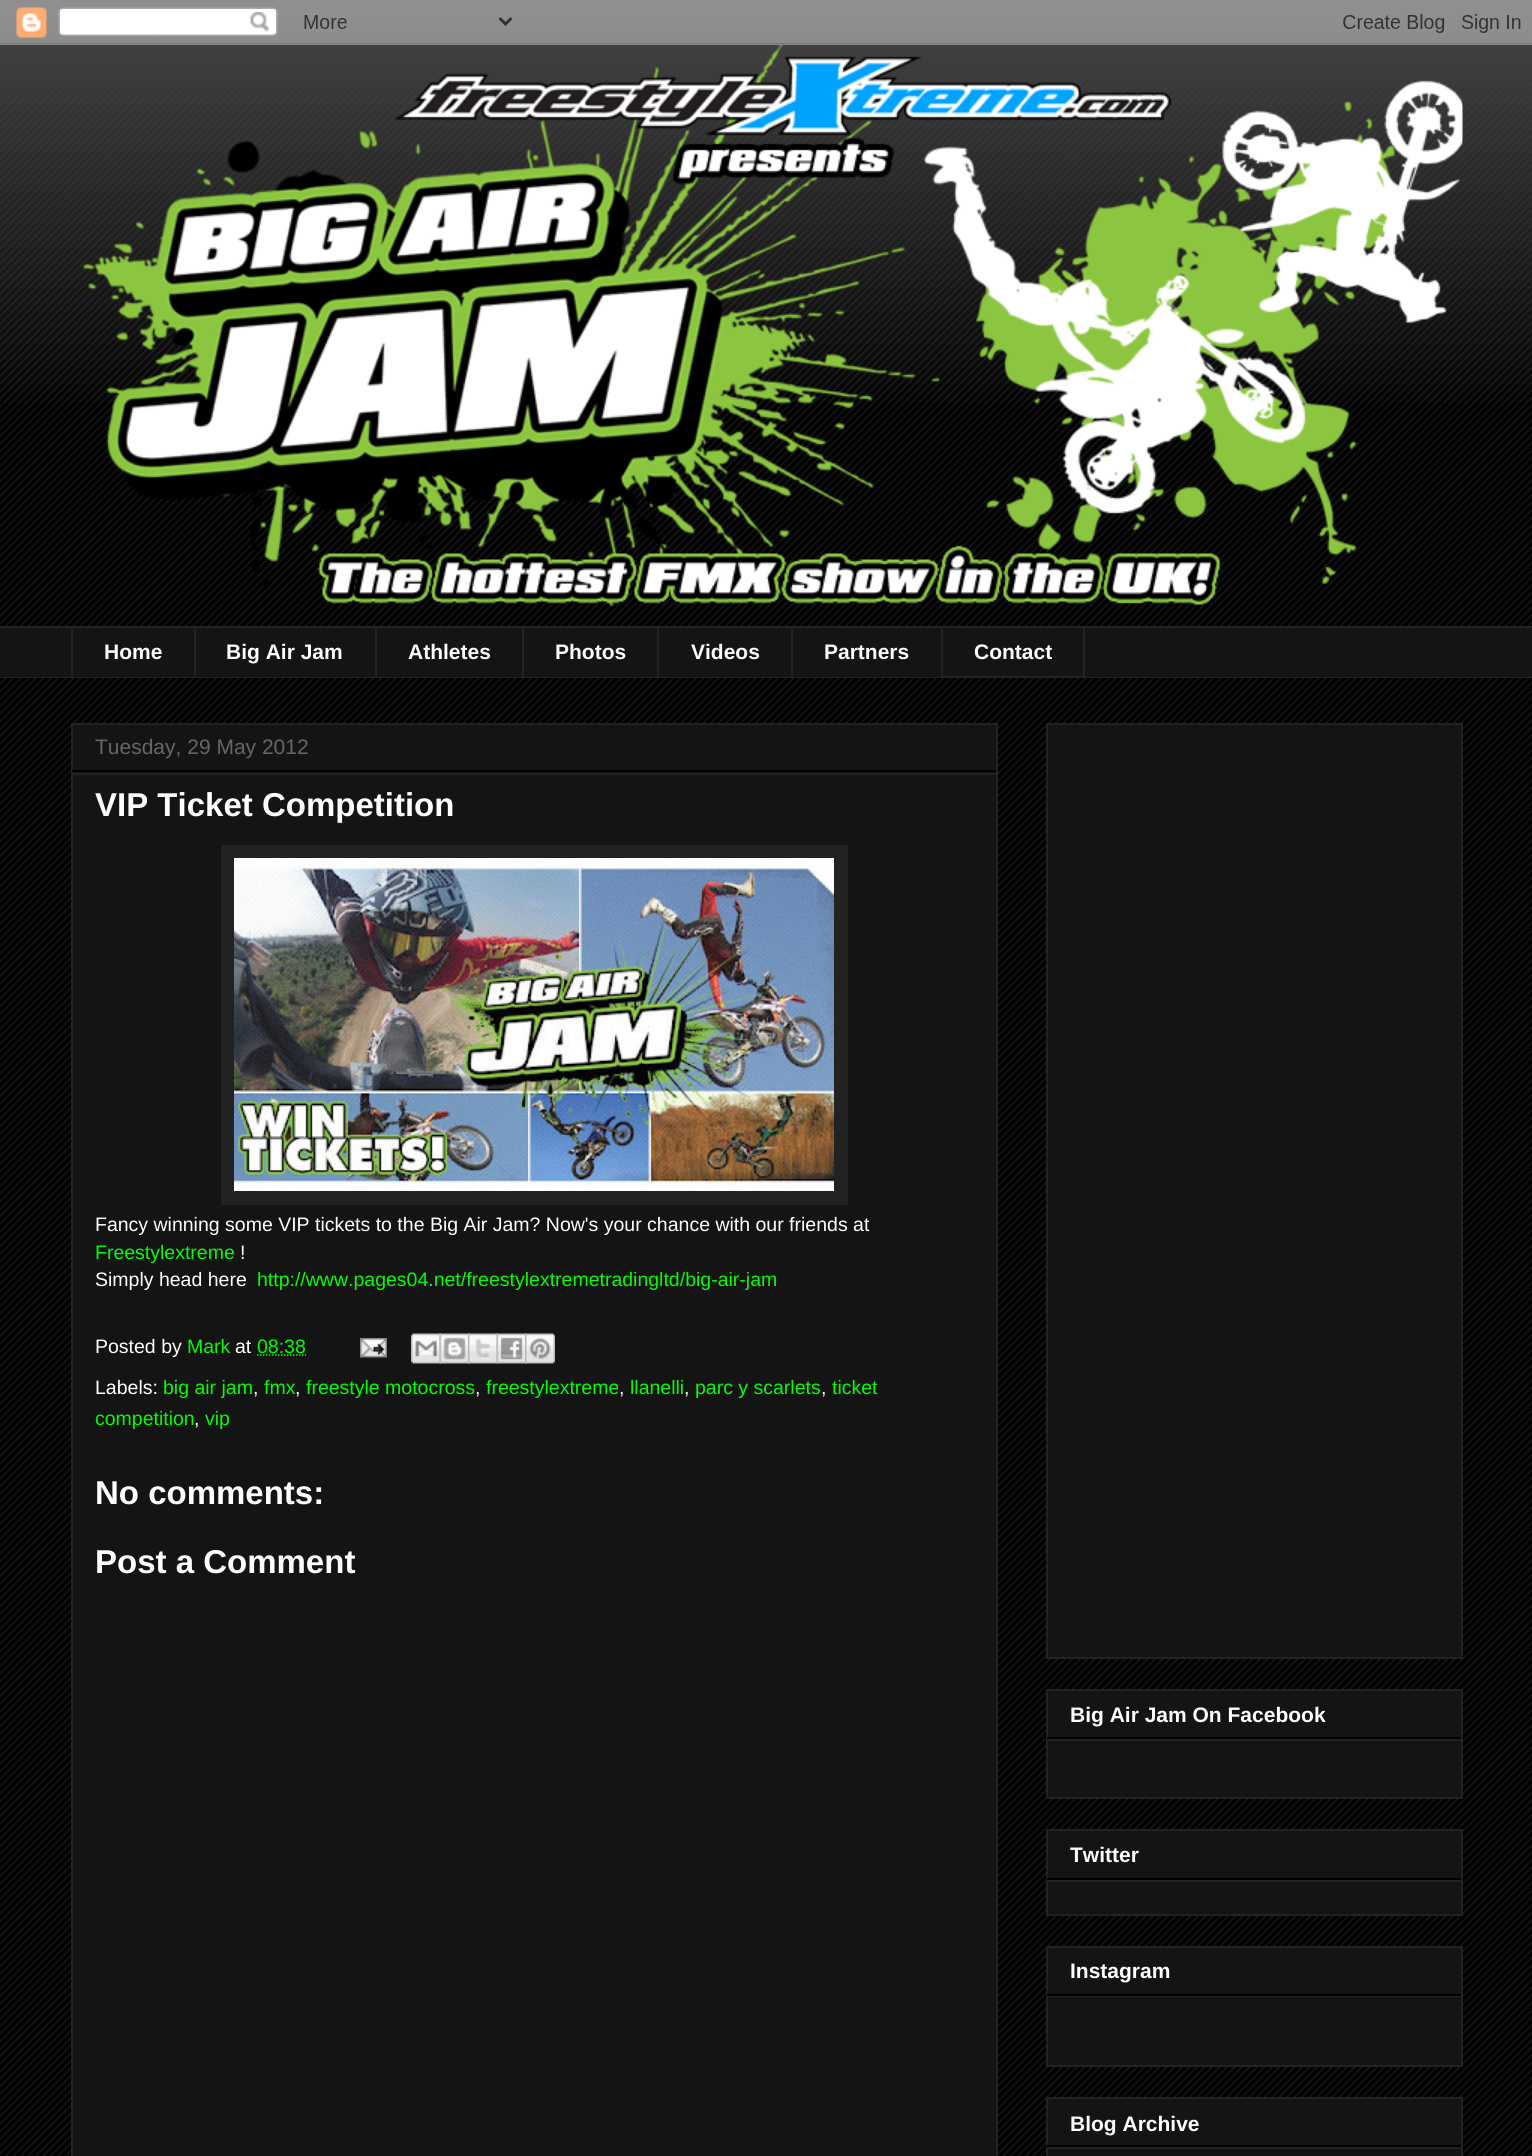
#include <cairo/cairo.h>
#include <math.h>
#include <stddef.h>


static void draw_image(cairo_t *cr, const char *path, double x, double y, double w, double h) {
  cairo_surface_t *image = cairo_image_surface_create_from_png(path);
  cairo_save(cr);
  cairo_set_source_surface(cr, image, x, y);
  cairo_rectangle(cr, x, y, w, h);
  cairo_fill(cr);
  cairo_restore(cr);
  cairo_surface_destroy(image);
}

static void draw(cairo_t *cr) {
  cairo_set_source_rgb(cr, 0, 0, 0);
  cairo_paint(cr);
  draw_image(cr, "images/1.png", 0, 20, 1532, 2136);
  draw_image(cr, "images/2.png", 0, 0, 1532, 402);
  draw_image(cr, "images/3.png", 0, 0, 1532, 45);
  draw_image(cr, "images/4.png", 82, 45, 1381, 562);
  cairo_set_source_rgb(cr, 20 / 255.0, 20 / 255.0, 20 / 255.0);
  cairo_rectangle(cr, 0, 628, 1532, 49);
  cairo_fill(cr);
  cairo_set_source_rgb(cr, 34 / 255.0, 34 / 255.0, 34 / 255.0);
  cairo_rectangle(cr, 0, 626, 1532, 2);
  cairo_fill(cr);
  cairo_rectangle(cr, 71, 626, 2, 52);
  cairo_fill(cr);
  cairo_rectangle(cr, 194, 626, 2, 52);
  cairo_fill(cr);
  cairo_rectangle(cr, 375, 626, 2, 52);
  cairo_fill(cr);
  cairo_rectangle(cr, 522, 626, 2, 52);
  cairo_fill(cr);
  cairo_rectangle(cr, 657, 626, 2, 52);
  cairo_fill(cr);
  cairo_rectangle(cr, 791, 626, 2, 52);
  cairo_fill(cr);
  cairo_rectangle(cr, 942, 627, 142, 50);
  cairo_stroke(cr);
  cairo_rectangle(cr, 0, 677, 1532, 1);
  cairo_fill(cr);
  cairo_set_source_rgb(cr, 20 / 255.0, 20 / 255.0, 20 / 255.0);
  cairo_rectangle(cr, 72, 724, 925, 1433);
  cairo_fill_preserve(cr);
  cairo_set_source_rgb(cr, 34 / 255.0, 34 / 255.0, 34 / 255.0);
  cairo_stroke(cr);
  cairo_set_source_rgb(cr, 0, 0, 0);
  cairo_rectangle(cr, 72, 770, 924, 2);
  cairo_fill(cr);
  cairo_set_source_rgb(cr, 34 / 255.0, 34 / 255.0, 34 / 255.0);
  cairo_rectangle(cr, 72, 773, 924, 2);
  cairo_fill(cr);
  cairo_rectangle(cr, 221, 845, 627, 360);
  cairo_fill(cr);
  draw_image(cr, "images/5.png", 234, 858, 600, 333);
  cairo_new_path(cr);
  cairo_move_to(cr, 257, 1355);
  cairo_line_to(cr, 306, 1355);
  cairo_set_source_rgb(cr, 0, 1, 0);
  cairo_set_line_width(cr, 1.5);
  cairo_set_dash(cr, (double[]){1.5, 1.5}, 2, 0);
  cairo_stroke(cr);
  draw_image(cr, "images/6.png", 360, 1338, 27, 20);
  draw_image(cr, "images/7.png", 411, 1333, 30, 31);
  draw_image(cr, "images/8.png", 439, 1333, 31, 31);
  draw_image(cr, "images/9.png", 468, 1333, 30, 31);
  draw_image(cr, "images/10.png", 496, 1333, 31, 31);
  draw_image(cr, "images/11.png", 525, 1333, 30, 31);
  cairo_set_source_rgb(cr, 20 / 255.0, 20 / 255.0, 20 / 255.0);
  cairo_rectangle(cr, 1047, 724, 415, 934);
  cairo_fill_preserve(cr);
  cairo_set_source_rgb(cr, 34 / 255.0, 34 / 255.0, 34 / 255.0);
  cairo_set_line_width(cr, 2);
  cairo_set_dash(cr, NULL, 0, 0);
  cairo_stroke(cr);
  cairo_set_source_rgb(cr, 20 / 255.0, 20 / 255.0, 20 / 255.0);
  cairo_rectangle(cr, 1047, 1690, 415, 108);
  cairo_fill_preserve(cr);
  cairo_set_source_rgb(cr, 34 / 255.0, 34 / 255.0, 34 / 255.0);
  cairo_stroke(cr);
  cairo_set_source_rgb(cr, 0, 0, 0);
  cairo_rectangle(cr, 1047, 1737, 414, 2);
  cairo_fill(cr);
  cairo_set_source_rgb(cr, 34 / 255.0, 34 / 255.0, 34 / 255.0);
  cairo_rectangle(cr, 1047, 1739, 414, 2);
  cairo_fill(cr);
  cairo_set_source_rgb(cr, 20 / 255.0, 20 / 255.0, 20 / 255.0);
  cairo_rectangle(cr, 1047, 1830, 415, 85);
  cairo_fill_preserve(cr);
  cairo_set_source_rgb(cr, 34 / 255.0, 34 / 255.0, 34 / 255.0);
  cairo_stroke(cr);
  cairo_set_source_rgb(cr, 0, 0, 0);
  cairo_rectangle(cr, 1047, 1878, 414, 2);
  cairo_fill(cr);
  cairo_set_source_rgb(cr, 34 / 255.0, 34 / 255.0, 34 / 255.0);
  cairo_rectangle(cr, 1047, 1880, 414, 2);
  cairo_fill(cr);
  cairo_set_source_rgb(cr, 20 / 255.0, 20 / 255.0, 20 / 255.0);
  cairo_rectangle(cr, 1047, 1947, 415, 119);
  cairo_fill_preserve(cr);
  cairo_set_source_rgb(cr, 34 / 255.0, 34 / 255.0, 34 / 255.0);
  cairo_stroke(cr);
  cairo_set_source_rgb(cr, 0, 0, 0);
  cairo_rectangle(cr, 1047, 1994, 414, 2);
  cairo_fill(cr);
  cairo_set_source_rgb(cr, 34 / 255.0, 34 / 255.0, 34 / 255.0);
  cairo_rectangle(cr, 1047, 1996, 414, 1);
  cairo_fill(cr);
  cairo_set_source_rgb(cr, 20 / 255.0, 20 / 255.0, 20 / 255.0);
  cairo_rectangle(cr, 1047, 2098, 415, 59);
  cairo_fill_preserve(cr);
  cairo_set_source_rgb(cr, 34 / 255.0, 34 / 255.0, 34 / 255.0);
  cairo_stroke(cr);
  cairo_set_source_rgb(cr, 0, 0, 0);
  cairo_rectangle(cr, 1047, 2145, 414, 2);
  cairo_fill(cr);
  cairo_set_source_rgb(cr, 34 / 255.0, 34 / 255.0, 34 / 255.0);
  cairo_rectangle(cr, 1047, 2147, 414, 2);
  cairo_fill(cr);
  cairo_select_font_face(cr, "Liberation Sans", CAIRO_FONT_SLANT_NORMAL, CAIRO_FONT_WEIGHT_BOLD);
  cairo_set_font_size(cr, 21);
  cairo_set_source_rgb(cr, 1, 1, 1);
  cairo_move_to(cr, 104, 659);
  cairo_show_text(cr, "Home");
  cairo_move_to(cr, 226, 659);
  cairo_show_text(cr, "Big Air Jam");
  cairo_move_to(cr, 408, 659);
  cairo_show_text(cr, "Athletes");
  cairo_move_to(cr, 555, 659);
  cairo_show_text(cr, "Photos");
  cairo_move_to(cr, 691, 659);
  cairo_show_text(cr, "Videos");
  cairo_move_to(cr, 824, 659);
  cairo_show_text(cr, "Partners");
  cairo_move_to(cr, 974, 659);
  cairo_show_text(cr, "Contact");
  cairo_select_font_face(cr, "Liberation Sans", CAIRO_FONT_SLANT_NORMAL, CAIRO_FONT_WEIGHT_NORMAL);
  cairo_set_source_rgb(cr, 102 / 255.0, 102 / 255.0, 102 / 255.0);
  cairo_move_to(cr, 95, 754);
  cairo_show_text(cr, "Tuesday, 29 May 2012");
  cairo_select_font_face(cr, "Liberation Sans", CAIRO_FONT_SLANT_NORMAL, CAIRO_FONT_WEIGHT_BOLD);
  cairo_set_font_size(cr, 33);
  cairo_set_source_rgb(cr, 1, 1, 1);
  cairo_move_to(cr, 95, 816);
  cairo_show_text(cr, "VIP Ticket Competition");
  cairo_select_font_face(cr, "Liberation Sans", CAIRO_FONT_SLANT_NORMAL, CAIRO_FONT_WEIGHT_NORMAL);
  cairo_set_font_size(cr, 19.5);
  cairo_move_to(cr, 95, 1231);
  cairo_show_text(cr, "Fancy winning some VIP tickets to the Big Air Jam? Now's your chance with our friends at");
  cairo_set_source_rgb(cr, 0, 1, 0);
  cairo_move_to(cr, 95, 1259);
  cairo_show_text(cr, "Freestylextreme");
  cairo_set_source_rgb(cr, 1, 1, 1);
  cairo_move_to(cr, 240, 1259);
  cairo_show_text(cr, "!");
  cairo_move_to(cr, 95, 1286);
  cairo_show_text(cr, "Simply head here");
  cairo_set_source_rgb(cr, 0, 1, 0);
  cairo_move_to(cr, 257, 1286);
  cairo_show_text(cr, "http://www.pages04.net/freestylextremetradingltd/big-air-jam");
  cairo_set_source_rgb(cr, 1, 1, 1);
  cairo_move_to(cr, 95, 1353);
  cairo_show_text(cr, "Posted by");
  cairo_set_source_rgb(cr, 0, 1, 0);
  cairo_move_to(cr, 187, 1353);
  cairo_show_text(cr, "Mark");
  cairo_set_source_rgb(cr, 1, 1, 1);
  cairo_move_to(cr, 235, 1353);
  cairo_show_text(cr, "at");
  cairo_set_source_rgb(cr, 0, 1, 0);
  cairo_move_to(cr, 257, 1353);
  cairo_show_text(cr, "08:38");
  cairo_set_source_rgb(cr, 1, 1, 1);
  cairo_move_to(cr, 95, 1394);
  cairo_show_text(cr, "Labels:");
  cairo_set_source_rgb(cr, 0, 1, 0);
  cairo_move_to(cr, 163, 1394);
  cairo_show_text(cr, "big air jam");
  cairo_set_source_rgb(cr, 1, 1, 1);
  cairo_move_to(cr, 253, 1394);
  cairo_show_text(cr, ",");
  cairo_set_source_rgb(cr, 0, 1, 0);
  cairo_move_to(cr, 264, 1394);
  cairo_show_text(cr, "fmx");
  cairo_set_source_rgb(cr, 1, 1, 1);
  cairo_move_to(cr, 295, 1394);
  cairo_show_text(cr, ",");
  cairo_set_source_rgb(cr, 0, 1, 0);
  cairo_move_to(cr, 306, 1394);
  cairo_show_text(cr, "freestyle motocross");
  cairo_set_source_rgb(cr, 1, 1, 1);
  cairo_move_to(cr, 475, 1394);
  cairo_show_text(cr, ",");
  cairo_set_source_rgb(cr, 0, 1, 0);
  cairo_move_to(cr, 486, 1394);
  cairo_show_text(cr, "freestylextreme");
  cairo_set_source_rgb(cr, 1, 1, 1);
  cairo_move_to(cr, 619, 1394);
  cairo_show_text(cr, ",");
  cairo_set_source_rgb(cr, 0, 1, 0);
  cairo_move_to(cr, 630, 1394);
  cairo_show_text(cr, "llanelli");
  cairo_set_source_rgb(cr, 1, 1, 1);
  cairo_move_to(cr, 684, 1394);
  cairo_show_text(cr, ",");
  cairo_set_source_rgb(cr, 0, 1, 0);
  cairo_move_to(cr, 695, 1394);
  cairo_show_text(cr, "parc y scarlets");
  cairo_set_source_rgb(cr, 1, 1, 1);
  cairo_move_to(cr, 821, 1394);
  cairo_show_text(cr, ",");
  cairo_set_source_rgb(cr, 0, 1, 0);
  cairo_move_to(cr, 832, 1394);
  cairo_show_text(cr, "ticket");
  cairo_move_to(cr, 95, 1425);
  cairo_show_text(cr, "competition");
  cairo_set_source_rgb(cr, 1, 1, 1);
  cairo_move_to(cr, 194, 1425);
  cairo_show_text(cr, ",");
  cairo_set_source_rgb(cr, 0, 1, 0);
  cairo_move_to(cr, 205, 1425);
  cairo_show_text(cr, "vip");
  cairo_select_font_face(cr, "Liberation Sans", CAIRO_FONT_SLANT_NORMAL, CAIRO_FONT_WEIGHT_BOLD);
  cairo_set_font_size(cr, 33);
  cairo_set_source_rgb(cr, 1, 1, 1);
  cairo_move_to(cr, 95, 1504);
  cairo_show_text(cr, "No comments:");
  cairo_move_to(cr, 95, 1573);
  cairo_show_text(cr, "Post a Comment");
  cairo_set_font_size(cr, 21);
  cairo_move_to(cr, 1070, 1722);
  cairo_show_text(cr, "Big Air Jam On Facebook");
  cairo_move_to(cr, 1070, 1862);
  cairo_show_text(cr, "Twitter");
  cairo_move_to(cr, 1070, 1978);
  cairo_show_text(cr, "Instagram");
  cairo_move_to(cr, 1070, 2131);
  cairo_show_text(cr, "Blog Archive");
}

int main(void) {
  cairo_surface_t *surface = cairo_image_surface_create(CAIRO_FORMAT_RGB24, 1532, 2156);
  cairo_t *cr = cairo_create(surface);
  cairo_font_options_t *options = cairo_font_options_create();
  cairo_font_options_set_hint_metrics(options, CAIRO_HINT_METRICS_OFF);
  cairo_font_options_set_hint_style(options, CAIRO_HINT_STYLE_NONE);
  cairo_set_font_options(cr, options);
  cairo_set_miter_limit(cr, 4);
  draw(cr);
  cairo_surface_write_to_png(surface, "out.png");
  cairo_font_options_destroy(options);
  cairo_destroy(cr);
  cairo_surface_destroy(surface);
  return 0;
}
